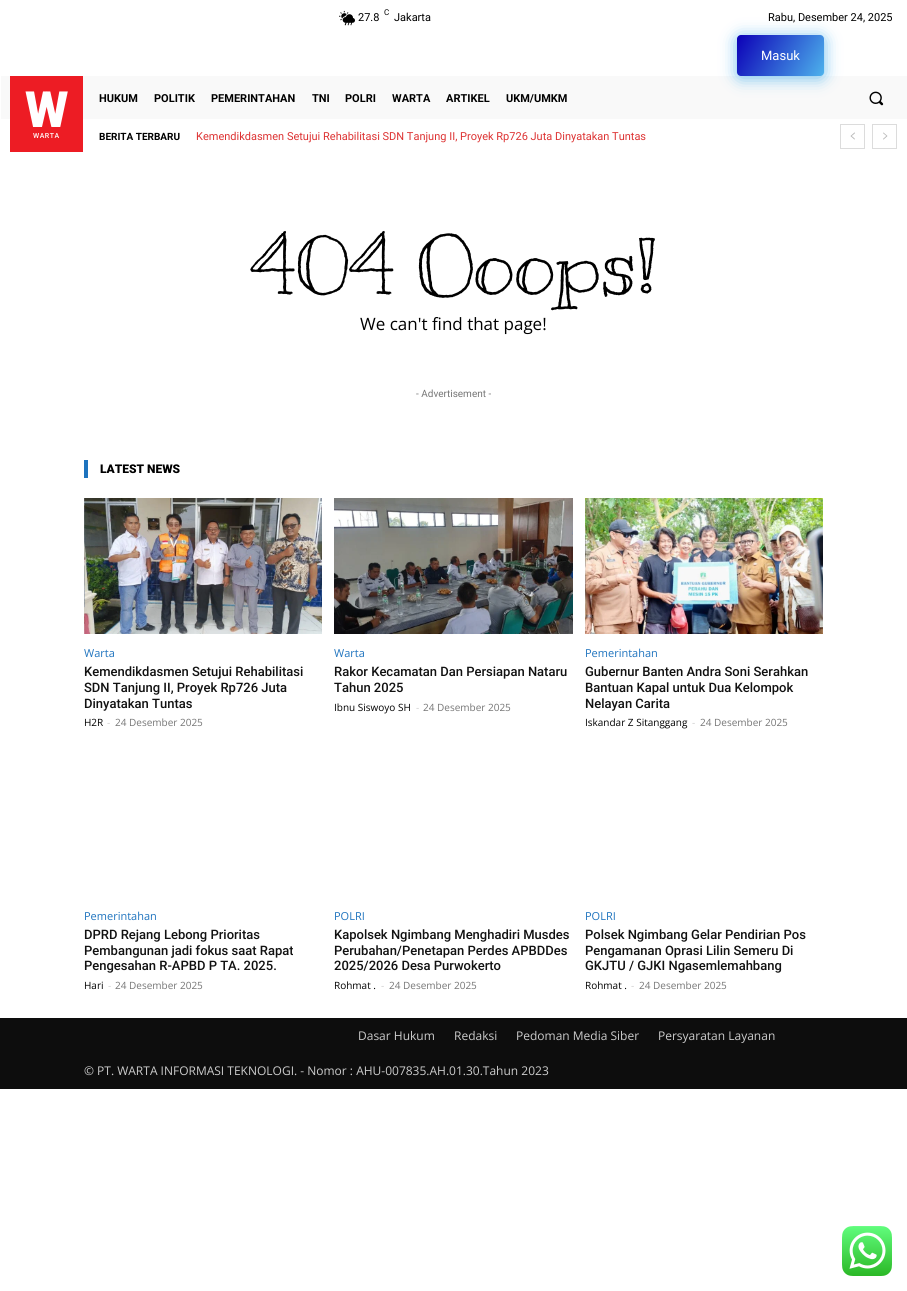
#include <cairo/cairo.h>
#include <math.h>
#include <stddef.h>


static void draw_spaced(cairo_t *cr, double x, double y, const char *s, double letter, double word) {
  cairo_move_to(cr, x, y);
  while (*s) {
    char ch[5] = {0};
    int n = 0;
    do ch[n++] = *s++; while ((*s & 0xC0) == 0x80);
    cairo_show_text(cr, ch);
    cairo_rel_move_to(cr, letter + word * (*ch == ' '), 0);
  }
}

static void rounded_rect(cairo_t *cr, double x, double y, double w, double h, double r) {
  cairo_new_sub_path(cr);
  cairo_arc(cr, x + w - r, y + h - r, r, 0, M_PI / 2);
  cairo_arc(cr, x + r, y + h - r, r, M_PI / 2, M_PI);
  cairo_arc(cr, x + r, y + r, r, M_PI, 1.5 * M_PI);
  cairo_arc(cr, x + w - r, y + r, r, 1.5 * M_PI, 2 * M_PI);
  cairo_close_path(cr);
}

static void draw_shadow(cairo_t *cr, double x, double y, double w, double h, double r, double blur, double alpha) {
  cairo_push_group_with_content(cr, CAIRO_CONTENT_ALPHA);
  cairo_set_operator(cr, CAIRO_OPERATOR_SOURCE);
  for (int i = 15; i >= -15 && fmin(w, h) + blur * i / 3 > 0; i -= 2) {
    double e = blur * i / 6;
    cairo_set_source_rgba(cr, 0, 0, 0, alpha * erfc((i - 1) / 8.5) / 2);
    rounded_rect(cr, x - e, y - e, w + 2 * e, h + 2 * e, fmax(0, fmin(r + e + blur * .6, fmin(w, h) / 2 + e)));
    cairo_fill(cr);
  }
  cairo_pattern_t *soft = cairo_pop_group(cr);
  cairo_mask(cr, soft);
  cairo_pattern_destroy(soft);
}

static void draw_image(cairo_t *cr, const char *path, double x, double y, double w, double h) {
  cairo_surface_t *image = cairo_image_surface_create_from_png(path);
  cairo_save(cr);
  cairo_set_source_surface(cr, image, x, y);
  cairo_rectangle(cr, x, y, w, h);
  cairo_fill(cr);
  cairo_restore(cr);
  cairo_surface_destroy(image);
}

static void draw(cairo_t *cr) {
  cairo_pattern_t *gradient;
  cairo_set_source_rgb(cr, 1, 1, 1);
  cairo_paint(cr);
  draw_image(cr, "images/1.png", 339, 10, 16, 16);
  cairo_set_source_rgb(cr, 249 / 255.0, 249 / 255.0, 249 / 255.0);
  cairo_rectangle(cr, 1, 76, 906, 43);
  cairo_fill(cr);
  cairo_set_source_rgb(cr, 77 / 255.0, 178 / 255.0, 236 / 255.0);
  draw_shadow(cr, 737, 37, 87, 41, 4, 8, 0.8);
  gradient = cairo_pattern_create_linear(822, 79, 739, 32);
  cairo_pattern_add_color_stop_rgba(gradient, 0, 77 / 255.0, 178 / 255.0, 236 / 255.0, 1);
  cairo_pattern_add_color_stop_rgba(gradient, 1, 12 / 255.0, 0, 183 / 255.0, 1);
  cairo_set_source(cr, gradient);
  cairo_pattern_destroy(gradient);
  rounded_rect(cr, 737, 35, 87, 41, 4);
  cairo_fill(cr);
  cairo_set_source_rgb(cr, 237 / 255.0, 28 / 255.0, 36 / 255.0);
  cairo_rectangle(cr, 10, 76, 73, 76);
  cairo_fill(cr);
  draw_image(cr, "images/2.png", 869, 91, 15, 15);
  cairo_rectangle(cr, 840.5, 124.5, 24, 24);
  cairo_set_source_rgb(cr, 220 / 255.0, 220 / 255.0, 220 / 255.0);
  cairo_set_line_width(cr, 1);
  cairo_stroke(cr);
  draw_image(cr, "images/3.png", 850, 132, 5, 8);
  cairo_rectangle(cr, 872.5, 124.5, 24, 24);
  cairo_stroke(cr);
  draw_image(cr, "images/4.png", 883, 132, 5, 8);
  cairo_set_source_rgb(cr, 30 / 255.0, 115 / 255.0, 190 / 255.0);
  cairo_rectangle(cr, 84, 460, 4, 18);
  cairo_fill(cr);
  draw_image(cr, "images/5.png", 84, 498, 238, 136);
  draw_image(cr, "images/6.png", 334, 498, 239, 136);
  draw_image(cr, "images/7.png", 585, 498, 238, 136);
  cairo_set_source_rgb(cr, 13 / 255.0, 13 / 255.0, 13 / 255.0);
  cairo_rectangle(cr, 0, 1018, 907, 71);
  cairo_fill(cr);
  draw_image(cr, "images/8.png", 842, 1226, 50, 50);
  cairo_select_font_face(cr, "Roboto", CAIRO_FONT_SLANT_NORMAL, CAIRO_FONT_WEIGHT_NORMAL);
  cairo_set_font_size(cr, 11);
  cairo_set_source_rgb(cr, 0, 0, 0);
  cairo_move_to(cr, 358, 21);
  cairo_show_text(cr, "27.8");
  cairo_set_font_size(cr, 8);
  cairo_move_to(cr, 384, 15);
  cairo_show_text(cr, "C");
  cairo_set_font_size(cr, 11);
  cairo_move_to(cr, 394, 21);
  cairo_show_text(cr, "Jakarta");
  cairo_move_to(cr, 768, 21);
  cairo_show_text(cr, "Rabu, Desember 24, 2025");
  cairo_set_font_size(cr, 13);
  cairo_set_source_rgb(cr, 1, 1, 1);
  cairo_move_to(cr, 761, 60);
  cairo_show_text(cr, "Masuk");
  cairo_select_font_face(cr, "Roboto Black", CAIRO_FONT_SLANT_NORMAL, CAIRO_FONT_WEIGHT_NORMAL);
  cairo_set_font_size(cr, 50);
  cairo_move_to(cr, 25, 127);
  cairo_show_text(cr, "W");
  cairo_select_font_face(cr, "Roboto Medium", CAIRO_FONT_SLANT_NORMAL, CAIRO_FONT_WEIGHT_NORMAL);
  cairo_set_font_size(cr, 7);
  draw_spaced(cr, 33, 138, "WARTA", 0.5, 0);
  cairo_select_font_face(cr, "Roboto", CAIRO_FONT_SLANT_NORMAL, CAIRO_FONT_WEIGHT_BOLD);
  cairo_set_font_size(cr, 11);
  cairo_set_source_rgb(cr, 0, 0, 0);
  cairo_move_to(cr, 99, 102);
  cairo_show_text(cr, "HUKUM");
  cairo_move_to(cr, 154, 102);
  cairo_show_text(cr, "POLITIK");
  cairo_move_to(cr, 211, 102);
  cairo_show_text(cr, "PEMERINTAHAN");
  cairo_move_to(cr, 312, 102);
  cairo_show_text(cr, "TNI");
  cairo_move_to(cr, 345, 102);
  cairo_show_text(cr, "POLRI");
  cairo_move_to(cr, 392, 102);
  cairo_show_text(cr, "WARTA");
  cairo_move_to(cr, 446, 102);
  cairo_show_text(cr, "ARTIKEL");
  cairo_move_to(cr, 506, 102);
  cairo_show_text(cr, "UKM/UMKM");
  cairo_set_font_size(cr, 10);
  cairo_move_to(cr, 99, 140);
  cairo_show_text(cr, "BERITA TERBARU");
  cairo_select_font_face(cr, "Roboto", CAIRO_FONT_SLANT_NORMAL, CAIRO_FONT_WEIGHT_NORMAL);
  cairo_set_font_size(cr, 11);
  cairo_set_source_rgb(cr, 221 / 255.0, 51 / 255.0, 51 / 255.0);
  cairo_move_to(cr, 196, 140);
  cairo_show_text(cr, "Kemendikdasmen Setujui Rehabilitasi SDN Tanjung II, Proyek Rp726 Juta Dinyatakan Tuntas");
  cairo_select_font_face(cr, "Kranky", CAIRO_FONT_SLANT_NORMAL, CAIRO_FONT_WEIGHT_NORMAL);
  cairo_set_font_size(cr, 80);
  cairo_set_source_rgb(cr, 0, 0, 0);
  cairo_move_to(cr, 251, 293);
  cairo_show_text(cr, "404 Ooops!");
  cairo_select_font_face(cr, "Open Sans", CAIRO_FONT_SLANT_NORMAL, CAIRO_FONT_WEIGHT_NORMAL);
  cairo_set_font_size(cr, 17);
  cairo_move_to(cr, 360, 330);
  cairo_show_text(cr, "We can't find that page!");
  cairo_select_font_face(cr, "Roboto", CAIRO_FONT_SLANT_NORMAL, CAIRO_FONT_WEIGHT_NORMAL);
  cairo_set_font_size(cr, 10);
  cairo_set_source_rgb(cr, 118 / 255.0, 118 / 255.0, 118 / 255.0);
  cairo_move_to(cr, 416, 397);
  cairo_show_text(cr, "- Advertisement -");
  cairo_select_font_face(cr, "Roboto Black", CAIRO_FONT_SLANT_NORMAL, CAIRO_FONT_WEIGHT_NORMAL);
  cairo_set_font_size(cr, 12);
  cairo_set_source_rgb(cr, 0, 0, 0);
  cairo_move_to(cr, 100, 473);
  cairo_show_text(cr, "LATEST NEWS");
  cairo_select_font_face(cr, "Open Sans", CAIRO_FONT_SLANT_NORMAL, CAIRO_FONT_WEIGHT_NORMAL);
  cairo_set_font_size(cr, 11);
  cairo_set_source_rgb(cr, 30 / 255.0, 115 / 255.0, 190 / 255.0);
  cairo_move_to(cr, 84, 657);
  cairo_show_text(cr, "Warta");
  cairo_select_font_face(cr, "Roboto Medium", CAIRO_FONT_SLANT_NORMAL, CAIRO_FONT_WEIGHT_NORMAL);
  cairo_set_font_size(cr, 13);
  cairo_set_source_rgb(cr, 17 / 255.0, 17 / 255.0, 17 / 255.0);
  cairo_move_to(cr, 84, 676);
  cairo_show_text(cr, "Kemendikdasmen Setujui Rehabilitasi");
  cairo_move_to(cr, 84, 692);
  cairo_show_text(cr, "SDN Tanjung II, Proyek Rp726 Juta");
  cairo_move_to(cr, 84, 708);
  cairo_show_text(cr, "Dinyatakan Tuntas");
  cairo_select_font_face(cr, "Open Sans", CAIRO_FONT_SLANT_NORMAL, CAIRO_FONT_WEIGHT_NORMAL);
  cairo_set_font_size(cr, 10);
  cairo_set_source_rgb(cr, 0, 0, 0);
  cairo_move_to(cr, 84, 726);
  cairo_show_text(cr, "H2R");
  cairo_set_source_rgb(cr, 204 / 255.0, 204 / 255.0, 204 / 255.0);
  cairo_move_to(cr, 107, 726);
  cairo_show_text(cr, "-");
  cairo_set_source_rgb(cr, 118 / 255.0, 118 / 255.0, 118 / 255.0);
  cairo_move_to(cr, 115, 726);
  cairo_show_text(cr, "24 Desember 2025");
  cairo_set_font_size(cr, 11);
  cairo_set_source_rgb(cr, 30 / 255.0, 115 / 255.0, 190 / 255.0);
  cairo_move_to(cr, 334, 657);
  cairo_show_text(cr, "Warta");
  cairo_select_font_face(cr, "Roboto Medium", CAIRO_FONT_SLANT_NORMAL, CAIRO_FONT_WEIGHT_NORMAL);
  cairo_set_font_size(cr, 13);
  cairo_set_source_rgb(cr, 17 / 255.0, 17 / 255.0, 17 / 255.0);
  cairo_move_to(cr, 334, 676);
  cairo_show_text(cr, "Rakor Kecamatan Dan Persiapan Nataru");
  cairo_move_to(cr, 334, 692);
  cairo_show_text(cr, "Tahun 2025");
  cairo_select_font_face(cr, "Open Sans", CAIRO_FONT_SLANT_NORMAL, CAIRO_FONT_WEIGHT_NORMAL);
  cairo_set_font_size(cr, 10);
  cairo_set_source_rgb(cr, 0, 0, 0);
  cairo_move_to(cr, 334, 711);
  cairo_show_text(cr, "Ibnu Siswoyo SH");
  cairo_set_source_rgb(cr, 204 / 255.0, 204 / 255.0, 204 / 255.0);
  cairo_move_to(cr, 416, 711);
  cairo_show_text(cr, "-");
  cairo_set_source_rgb(cr, 118 / 255.0, 118 / 255.0, 118 / 255.0);
  cairo_move_to(cr, 423, 711);
  cairo_show_text(cr, "24 Desember 2025");
  cairo_set_font_size(cr, 11);
  cairo_set_source_rgb(cr, 30 / 255.0, 115 / 255.0, 190 / 255.0);
  cairo_move_to(cr, 585, 657);
  cairo_show_text(cr, "Pemerintahan");
  cairo_select_font_face(cr, "Roboto Medium", CAIRO_FONT_SLANT_NORMAL, CAIRO_FONT_WEIGHT_NORMAL);
  cairo_set_font_size(cr, 13);
  cairo_set_source_rgb(cr, 17 / 255.0, 17 / 255.0, 17 / 255.0);
  cairo_move_to(cr, 585, 676);
  cairo_show_text(cr, "Gubernur Banten Andra Soni Serahkan");
  cairo_move_to(cr, 585, 692);
  cairo_show_text(cr, "Bantuan Kapal untuk Dua Kelompok");
  cairo_move_to(cr, 585, 708);
  cairo_show_text(cr, "Nelayan Carita");
  cairo_select_font_face(cr, "Open Sans", CAIRO_FONT_SLANT_NORMAL, CAIRO_FONT_WEIGHT_NORMAL);
  cairo_set_font_size(cr, 10);
  cairo_set_source_rgb(cr, 0, 0, 0);
  cairo_move_to(cr, 585, 726);
  cairo_show_text(cr, "Iskandar Z Sitanggang");
  cairo_set_source_rgb(cr, 204 / 255.0, 204 / 255.0, 204 / 255.0);
  cairo_move_to(cr, 692, 726);
  cairo_show_text(cr, "-");
  cairo_set_source_rgb(cr, 118 / 255.0, 118 / 255.0, 118 / 255.0);
  cairo_move_to(cr, 700, 726);
  cairo_show_text(cr, "24 Desember 2025");
  cairo_set_font_size(cr, 11);
  cairo_set_source_rgb(cr, 30 / 255.0, 115 / 255.0, 190 / 255.0);
  cairo_move_to(cr, 84, 920);
  cairo_show_text(cr, "Pemerintahan");
  cairo_select_font_face(cr, "Roboto Medium", CAIRO_FONT_SLANT_NORMAL, CAIRO_FONT_WEIGHT_NORMAL);
  cairo_set_font_size(cr, 13);
  cairo_set_source_rgb(cr, 17 / 255.0, 17 / 255.0, 17 / 255.0);
  cairo_move_to(cr, 84, 939);
  cairo_show_text(cr, "DPRD Rejang Lebong Prioritas");
  cairo_move_to(cr, 84, 955);
  cairo_show_text(cr, "Pembangunan jadi fokus saat Rapat");
  cairo_move_to(cr, 84, 970);
  cairo_show_text(cr, "Pengesahan R-APBD P TA. 2025.");
  cairo_select_font_face(cr, "Open Sans", CAIRO_FONT_SLANT_NORMAL, CAIRO_FONT_WEIGHT_NORMAL);
  cairo_set_font_size(cr, 10);
  cairo_set_source_rgb(cr, 0, 0, 0);
  cairo_move_to(cr, 84, 989);
  cairo_show_text(cr, "Hari");
  cairo_set_source_rgb(cr, 204 / 255.0, 204 / 255.0, 204 / 255.0);
  cairo_move_to(cr, 108, 989);
  cairo_show_text(cr, "-");
  cairo_set_source_rgb(cr, 118 / 255.0, 118 / 255.0, 118 / 255.0);
  cairo_move_to(cr, 115, 989);
  cairo_show_text(cr, "24 Desember 2025");
  cairo_set_font_size(cr, 11);
  cairo_set_source_rgb(cr, 30 / 255.0, 115 / 255.0, 190 / 255.0);
  cairo_move_to(cr, 334, 920);
  cairo_show_text(cr, "POLRI");
  cairo_select_font_face(cr, "Roboto Medium", CAIRO_FONT_SLANT_NORMAL, CAIRO_FONT_WEIGHT_NORMAL);
  cairo_set_font_size(cr, 13);
  cairo_set_source_rgb(cr, 17 / 255.0, 17 / 255.0, 17 / 255.0);
  cairo_move_to(cr, 334, 939);
  cairo_show_text(cr, "Kapolsek Ngimbang Menghadiri Musdes");
  cairo_move_to(cr, 334, 955);
  cairo_show_text(cr, "Perubahan/Penetapan Perdes APBDDes");
  cairo_move_to(cr, 334, 970);
  cairo_show_text(cr, "2025/2026 Desa Purwokerto");
  cairo_select_font_face(cr, "Open Sans", CAIRO_FONT_SLANT_NORMAL, CAIRO_FONT_WEIGHT_NORMAL);
  cairo_set_font_size(cr, 10);
  cairo_set_source_rgb(cr, 0, 0, 0);
  cairo_move_to(cr, 334, 989);
  cairo_show_text(cr, "Rohmat .");
  cairo_set_source_rgb(cr, 204 / 255.0, 204 / 255.0, 204 / 255.0);
  cairo_move_to(cr, 381, 989);
  cairo_show_text(cr, "-");
  cairo_set_source_rgb(cr, 118 / 255.0, 118 / 255.0, 118 / 255.0);
  cairo_move_to(cr, 389, 989);
  cairo_show_text(cr, "24 Desember 2025");
  cairo_set_font_size(cr, 11);
  cairo_set_source_rgb(cr, 30 / 255.0, 115 / 255.0, 190 / 255.0);
  cairo_move_to(cr, 585, 920);
  cairo_show_text(cr, "POLRI");
  cairo_select_font_face(cr, "Roboto Medium", CAIRO_FONT_SLANT_NORMAL, CAIRO_FONT_WEIGHT_NORMAL);
  cairo_set_font_size(cr, 13);
  cairo_set_source_rgb(cr, 17 / 255.0, 17 / 255.0, 17 / 255.0);
  cairo_move_to(cr, 585, 939);
  cairo_show_text(cr, "Polsek Ngimbang Gelar Pendirian Pos");
  cairo_move_to(cr, 585, 955);
  cairo_show_text(cr, "Pengamanan Oprasi Lilin Semeru Di");
  cairo_move_to(cr, 585, 970);
  cairo_show_text(cr, "GKJTU / GJKI Ngasemlemahbang");
  cairo_select_font_face(cr, "Open Sans", CAIRO_FONT_SLANT_NORMAL, CAIRO_FONT_WEIGHT_NORMAL);
  cairo_set_font_size(cr, 10);
  cairo_set_source_rgb(cr, 0, 0, 0);
  cairo_move_to(cr, 585, 989);
  cairo_show_text(cr, "Rohmat .");
  cairo_set_source_rgb(cr, 204 / 255.0, 204 / 255.0, 204 / 255.0);
  cairo_move_to(cr, 631, 989);
  cairo_show_text(cr, "-");
  cairo_set_source_rgb(cr, 118 / 255.0, 118 / 255.0, 118 / 255.0);
  cairo_move_to(cr, 639, 989);
  cairo_show_text(cr, "24 Desember 2025");
  cairo_set_font_size(cr, 12);
  cairo_set_source_rgb(cr, 204 / 255.0, 204 / 255.0, 204 / 255.0);
  cairo_move_to(cr, 358, 1040);
  cairo_show_text(cr, "Dasar Hukum");
  cairo_move_to(cr, 454, 1040);
  cairo_show_text(cr, "Redaksi");
  cairo_move_to(cr, 516, 1040);
  cairo_show_text(cr, "Pedoman Media Siber");
  cairo_move_to(cr, 658, 1040);
  cairo_show_text(cr, "Persyaratan Layanan");
  cairo_move_to(cr, 84, 1075);
  cairo_show_text(cr, "© PT. WARTA INFORMASI TEKNOLOGI. - Nomor : AHU-007835.AH.01.30.Tahun 2023");
}

int main(void) {
  cairo_surface_t *surface = cairo_image_surface_create(CAIRO_FORMAT_RGB24, 907, 1291);
  cairo_t *cr = cairo_create(surface);
  cairo_font_options_t *options = cairo_font_options_create();
  cairo_font_options_set_hint_metrics(options, CAIRO_HINT_METRICS_OFF);
  cairo_font_options_set_hint_style(options, CAIRO_HINT_STYLE_NONE);
  cairo_set_font_options(cr, options);
  cairo_set_miter_limit(cr, 4);
  draw(cr);
  cairo_surface_write_to_png(surface, "out.png");
  cairo_font_options_destroy(options);
  cairo_destroy(cr);
  cairo_surface_destroy(surface);
  return 0;
}
